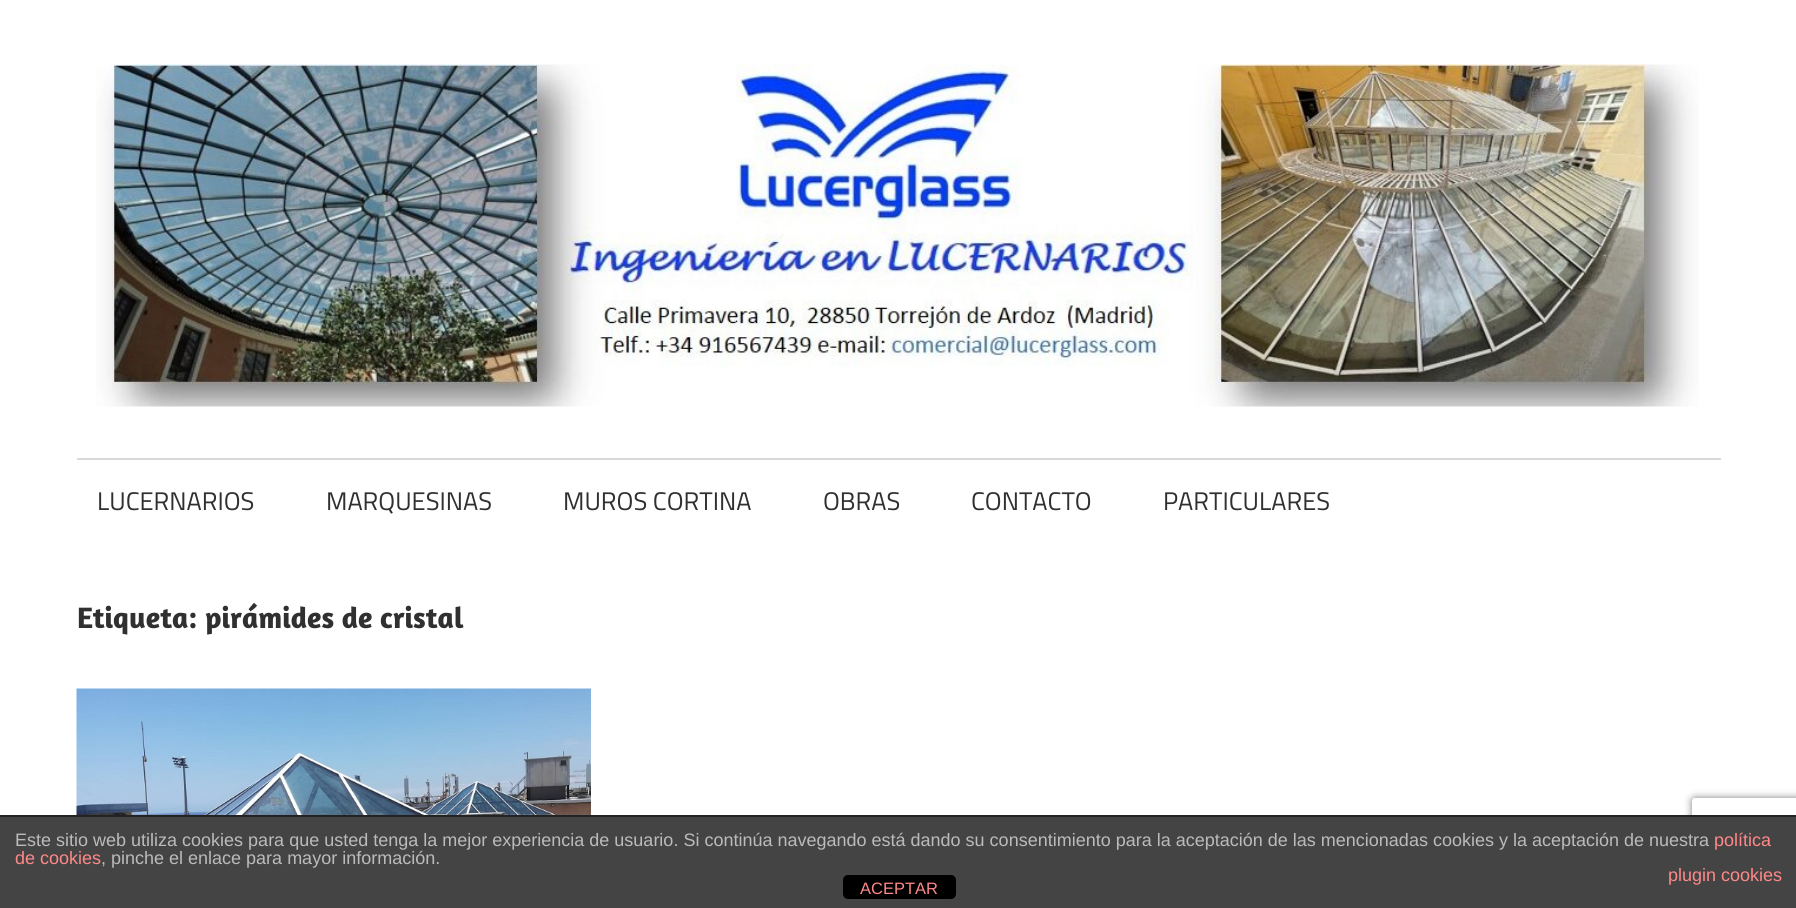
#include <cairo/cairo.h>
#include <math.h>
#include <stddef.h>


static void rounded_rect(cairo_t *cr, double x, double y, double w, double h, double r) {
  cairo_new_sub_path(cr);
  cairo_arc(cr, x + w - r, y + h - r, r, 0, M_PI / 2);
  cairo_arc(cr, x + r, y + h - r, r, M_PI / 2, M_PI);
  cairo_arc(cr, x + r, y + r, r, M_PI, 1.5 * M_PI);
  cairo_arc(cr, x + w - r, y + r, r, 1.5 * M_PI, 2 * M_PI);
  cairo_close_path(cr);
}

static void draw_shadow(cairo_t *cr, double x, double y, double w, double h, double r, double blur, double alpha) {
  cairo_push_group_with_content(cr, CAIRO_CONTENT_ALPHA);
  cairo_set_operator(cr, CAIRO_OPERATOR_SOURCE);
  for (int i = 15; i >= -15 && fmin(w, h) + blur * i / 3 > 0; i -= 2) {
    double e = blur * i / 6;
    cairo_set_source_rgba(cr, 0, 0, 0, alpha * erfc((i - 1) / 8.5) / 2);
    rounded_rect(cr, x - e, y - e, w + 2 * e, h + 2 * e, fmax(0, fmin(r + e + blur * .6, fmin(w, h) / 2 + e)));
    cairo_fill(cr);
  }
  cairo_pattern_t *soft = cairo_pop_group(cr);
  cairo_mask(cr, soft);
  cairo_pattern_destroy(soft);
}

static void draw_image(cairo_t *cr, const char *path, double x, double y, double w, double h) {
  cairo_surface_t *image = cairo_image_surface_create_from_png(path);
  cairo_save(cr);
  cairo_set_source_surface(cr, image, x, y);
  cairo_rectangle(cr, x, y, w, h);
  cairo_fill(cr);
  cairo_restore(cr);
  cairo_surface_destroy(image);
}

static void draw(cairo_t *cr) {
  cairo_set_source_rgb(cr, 1, 1, 1);
  cairo_paint(cr);
  draw_image(cr, "images/1.png", 96, 64, 1603, 343);
  cairo_set_source_rgb(cr, 217 / 255.0, 217 / 255.0, 217 / 255.0);
  cairo_rectangle(cr, 77, 458, 1644, 2);
  cairo_fill(cr);
  draw_image(cr, "images/2.png", 76, 688, 515, 127);
  cairo_save(cr);
  cairo_set_fill_rule(cr, CAIRO_FILL_RULE_EVEN_ODD);
  cairo_new_path(cr);
  cairo_move_to(cr, 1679, 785);
  cairo_line_to(cr, 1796, 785);
  cairo_line_to(cr, 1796, 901);
  cairo_line_to(cr, 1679, 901);
  cairo_close_path(cr);
  cairo_move_to(cr, 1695, 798);
  cairo_line_to(cr, 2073, 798);
  cairo_curve_to(cr, 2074.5, 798, 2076, 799.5, 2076, 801);
  cairo_line_to(cr, 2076, 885);
  cairo_curve_to(cr, 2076, 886.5, 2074.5, 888, 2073, 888);
  cairo_line_to(cr, 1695, 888);
  cairo_curve_to(cr, 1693.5, 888, 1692, 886.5, 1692, 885);
  cairo_line_to(cr, 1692, 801);
  cairo_curve_to(cr, 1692, 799.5, 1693.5, 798, 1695, 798);
  cairo_close_path(cr);
  cairo_clip(cr);
  cairo_set_source_rgb(cr, 128 / 255.0, 128 / 255.0, 128 / 255.0);
  draw_shadow(cr, 1692, 798, 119, 90, 3, 4, 1);
  cairo_restore(cr);
  cairo_set_source_rgb(cr, 68 / 255.0, 68 / 255.0, 68 / 255.0);
  cairo_rectangle(cr, 0, 817, 1796, 91);
  cairo_fill(cr);
  cairo_set_source_rgb(cr, 34 / 255.0, 34 / 255.0, 34 / 255.0);
  cairo_rectangle(cr, 0, 815, 1796, 2);
  cairo_fill(cr);
  cairo_set_source_rgb(cr, 0, 0, 0);
  rounded_rect(cr, 843, 875, 113, 24, 5);
  cairo_fill(cr);
  cairo_select_font_face(cr, "Titillium Web", CAIRO_FONT_SLANT_NORMAL, CAIRO_FONT_WEIGHT_NORMAL);
  cairo_set_font_size(cr, 25.5);
  cairo_set_source_rgb(cr, 48 / 255.0, 48 / 255.0, 48 / 255.0);
  cairo_move_to(cr, 97, 510);
  cairo_show_text(cr, "LUCERNARIOS");
  cairo_move_to(cr, 326, 510);
  cairo_show_text(cr, "MARQUESINAS");
  cairo_move_to(cr, 563, 510);
  cairo_show_text(cr, "MUROS CORTINA");
  cairo_move_to(cr, 823, 510);
  cairo_show_text(cr, "OBRAS");
  cairo_move_to(cr, 971, 510);
  cairo_show_text(cr, "CONTACTO");
  cairo_move_to(cr, 1163, 510);
  cairo_show_text(cr, "PARTICULARES");
  cairo_select_font_face(cr, "Amaranth", CAIRO_FONT_SLANT_NORMAL, CAIRO_FONT_WEIGHT_BOLD);
  cairo_set_font_size(cr, 30);
  cairo_move_to(cr, 77, 628);
  cairo_show_text(cr, "Etiqueta: pirámides de cristal");
  cairo_select_font_face(cr, "Liberation Sans", CAIRO_FONT_SLANT_NORMAL, CAIRO_FONT_WEIGHT_NORMAL);
  cairo_set_font_size(cr, 18);
  cairo_set_source_rgb(cr, 187 / 255.0, 187 / 255.0, 187 / 255.0);
  cairo_move_to(cr, 15, 846);
  cairo_show_text(cr, "Este sitio web utiliza cookies para que usted tenga la mejor experiencia de usuario. Si continúa navegando está dando su consentimiento para la aceptación de las mencionadas cookies y la aceptación de nuestra");
  cairo_set_source_rgb(cr, 1, 136 / 255.0, 136 / 255.0);
  cairo_move_to(cr, 1714, 846);
  cairo_show_text(cr, "política");
  cairo_move_to(cr, 15, 864);
  cairo_show_text(cr, "de cookies");
  cairo_set_source_rgb(cr, 187 / 255.0, 187 / 255.0, 187 / 255.0);
  cairo_move_to(cr, 101, 864);
  cairo_show_text(cr, ", pinche el enlace para mayor información.");
  cairo_set_source_rgb(cr, 1, 136 / 255.0, 136 / 255.0);
  cairo_move_to(cr, 1668, 881);
  cairo_show_text(cr, "plugin cookies");
  cairo_set_font_size(cr, 16.5);
  cairo_move_to(cr, 860, 894);
  cairo_show_text(cr, "ACEPTAR");
}

int main(void) {
  cairo_surface_t *surface = cairo_image_surface_create(CAIRO_FORMAT_RGB24, 1796, 908);
  cairo_t *cr = cairo_create(surface);
  cairo_font_options_t *options = cairo_font_options_create();
  cairo_font_options_set_hint_metrics(options, CAIRO_HINT_METRICS_OFF);
  cairo_font_options_set_hint_style(options, CAIRO_HINT_STYLE_NONE);
  cairo_set_font_options(cr, options);
  cairo_set_miter_limit(cr, 4);
  draw(cr);
  cairo_surface_write_to_png(surface, "out.png");
  cairo_font_options_destroy(options);
  cairo_destroy(cr);
  cairo_surface_destroy(surface);
  return 0;
}
